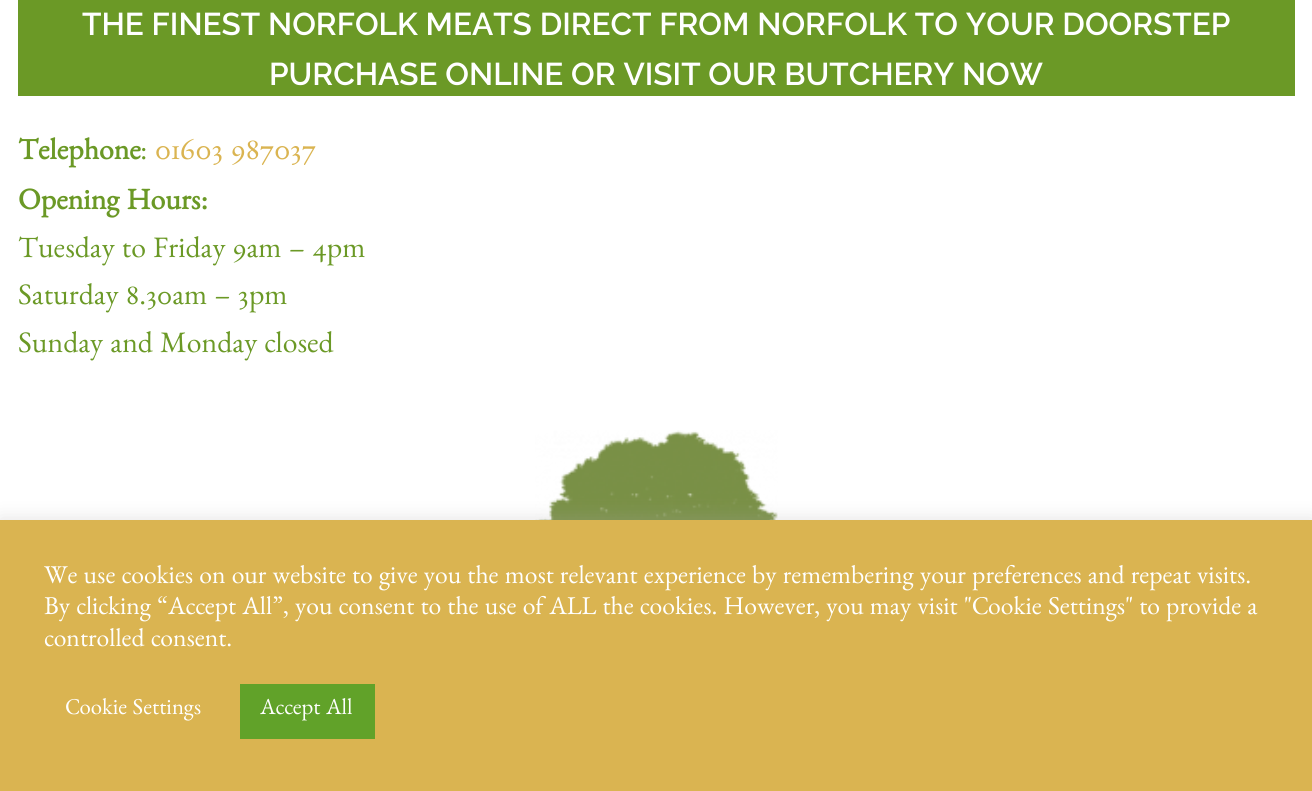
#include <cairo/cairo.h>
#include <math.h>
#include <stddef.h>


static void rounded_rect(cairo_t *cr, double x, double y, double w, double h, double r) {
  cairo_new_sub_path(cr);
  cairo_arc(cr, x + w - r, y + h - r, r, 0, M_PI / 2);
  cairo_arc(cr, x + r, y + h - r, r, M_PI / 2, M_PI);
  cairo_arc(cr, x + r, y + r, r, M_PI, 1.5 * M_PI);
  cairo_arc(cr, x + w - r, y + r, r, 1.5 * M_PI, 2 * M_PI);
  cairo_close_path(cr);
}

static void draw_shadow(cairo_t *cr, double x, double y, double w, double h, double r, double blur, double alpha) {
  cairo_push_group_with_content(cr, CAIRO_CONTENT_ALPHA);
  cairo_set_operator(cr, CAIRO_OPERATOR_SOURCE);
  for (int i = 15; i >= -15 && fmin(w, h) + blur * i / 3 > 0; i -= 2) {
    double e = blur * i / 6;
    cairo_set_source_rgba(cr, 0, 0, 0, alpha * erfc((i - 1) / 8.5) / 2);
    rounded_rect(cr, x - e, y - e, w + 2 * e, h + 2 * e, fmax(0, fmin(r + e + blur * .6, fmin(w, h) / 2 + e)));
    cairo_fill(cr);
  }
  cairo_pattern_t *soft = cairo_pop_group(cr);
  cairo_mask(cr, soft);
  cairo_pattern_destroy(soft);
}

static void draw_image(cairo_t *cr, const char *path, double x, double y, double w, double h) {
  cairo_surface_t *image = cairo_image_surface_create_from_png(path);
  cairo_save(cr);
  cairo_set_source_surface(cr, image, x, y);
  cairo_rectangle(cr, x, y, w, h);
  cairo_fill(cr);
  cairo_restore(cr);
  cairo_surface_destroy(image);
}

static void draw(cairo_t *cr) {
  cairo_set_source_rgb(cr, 1, 1, 1);
  cairo_paint(cr);
  cairo_set_source_rgb(cr, 107 / 255.0, 153 / 255.0, 38 / 255.0);
  cairo_rectangle(cr, 18, 0, 1277, 96);
  cairo_fill(cr);
  draw_image(cr, "images/1.png", 535, 430, 243, 90);
  cairo_set_source_rgb(cr, 172 / 255.0, 171 / 255.0, 171 / 255.0);
  draw_shadow(cr, 0, 518, 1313, 271, 0, 9, 0.3);
  cairo_set_source_rgb(cr, 218 / 255.0, 180 / 255.0, 81 / 255.0);
  cairo_rectangle(cr, 0, 520, 1312, 271);
  cairo_fill(cr);
  cairo_set_source_rgb(cr, 97 / 255.0, 162 / 255.0, 41 / 255.0);
  cairo_rectangle(cr, 240, 684, 135, 55);
  cairo_fill(cr);
  cairo_select_font_face(cr, "Raleway SemiBold", CAIRO_FONT_SLANT_NORMAL, CAIRO_FONT_WEIGHT_NORMAL);
  cairo_set_font_size(cr, 31.5);
  cairo_set_source_rgb(cr, 1, 1, 1);
  cairo_move_to(cr, 82, 35);
  cairo_show_text(cr, "THE FINEST NORFOLK MEATS DIRECT FROM NORFOLK TO YOUR DOORSTEP");
  cairo_move_to(cr, 269, 85);
  cairo_show_text(cr, "PURCHASE ONLINE OR VISIT OUR BUTCHERY NOW");
  cairo_select_font_face(cr, "Benne", CAIRO_FONT_SLANT_NORMAL, CAIRO_FONT_WEIGHT_BOLD);
  cairo_set_font_size(cr, 29.75);
  cairo_set_source_rgb(cr, 107 / 255.0, 153 / 255.0, 38 / 255.0);
  cairo_move_to(cr, 18, 159);
  cairo_show_text(cr, "Telephone");
  cairo_select_font_face(cr, "Benne", CAIRO_FONT_SLANT_NORMAL, CAIRO_FONT_WEIGHT_NORMAL);
  cairo_move_to(cr, 140, 159);
  cairo_show_text(cr, ":");
  cairo_set_font_size(cr, 31.5);
  cairo_set_source_rgb(cr, 218 / 255.0, 180 / 255.0, 81 / 255.0);
  cairo_move_to(cr, 155, 159);
  cairo_show_text(cr, "01603 987037");
  cairo_select_font_face(cr, "Benne", CAIRO_FONT_SLANT_NORMAL, CAIRO_FONT_WEIGHT_BOLD);
  cairo_set_font_size(cr, 29.75);
  cairo_set_source_rgb(cr, 107 / 255.0, 153 / 255.0, 38 / 255.0);
  cairo_move_to(cr, 18, 209);
  cairo_show_text(cr, "Opening Hours:");
  cairo_select_font_face(cr, "Benne", CAIRO_FONT_SLANT_NORMAL, CAIRO_FONT_WEIGHT_NORMAL);
  cairo_move_to(cr, 18, 257);
  cairo_show_text(cr, "Tuesday to Friday 9am – 4pm");
  cairo_move_to(cr, 18, 304);
  cairo_show_text(cr, "Saturday 8.30am – 3pm");
  cairo_move_to(cr, 18, 352);
  cairo_show_text(cr, "Sunday and Monday closed");
  cairo_set_font_size(cr, 25.65);
  cairo_set_source_rgb(cr, 1, 1, 1);
  cairo_move_to(cr, 44, 583);
  cairo_show_text(cr, "We use cookies on our website to give you the most relevant experience by remembering your preferences and repeat visits.");
  cairo_move_to(cr, 44, 614);
  cairo_show_text(cr, "By clicking “Accept All”, you consent to the use of ALL the cookies. However, you may visit \"Cookie Settings\" to provide a");
  cairo_move_to(cr, 44, 646);
  cairo_show_text(cr, "controlled consent.");
  cairo_set_font_size(cr, 22.75);
  cairo_move_to(cr, 65, 714);
  cairo_show_text(cr, "Cookie Settings");
  cairo_move_to(cr, 260, 714);
  cairo_show_text(cr, "Accept All");
}

int main(void) {
  cairo_surface_t *surface = cairo_image_surface_create(CAIRO_FORMAT_RGB24, 1312, 791);
  cairo_t *cr = cairo_create(surface);
  cairo_font_options_t *options = cairo_font_options_create();
  cairo_font_options_set_hint_metrics(options, CAIRO_HINT_METRICS_OFF);
  cairo_font_options_set_hint_style(options, CAIRO_HINT_STYLE_NONE);
  cairo_set_font_options(cr, options);
  cairo_set_miter_limit(cr, 4);
  draw(cr);
  cairo_surface_write_to_png(surface, "out.png");
  cairo_font_options_destroy(options);
  cairo_destroy(cr);
  cairo_surface_destroy(surface);
  return 0;
}
